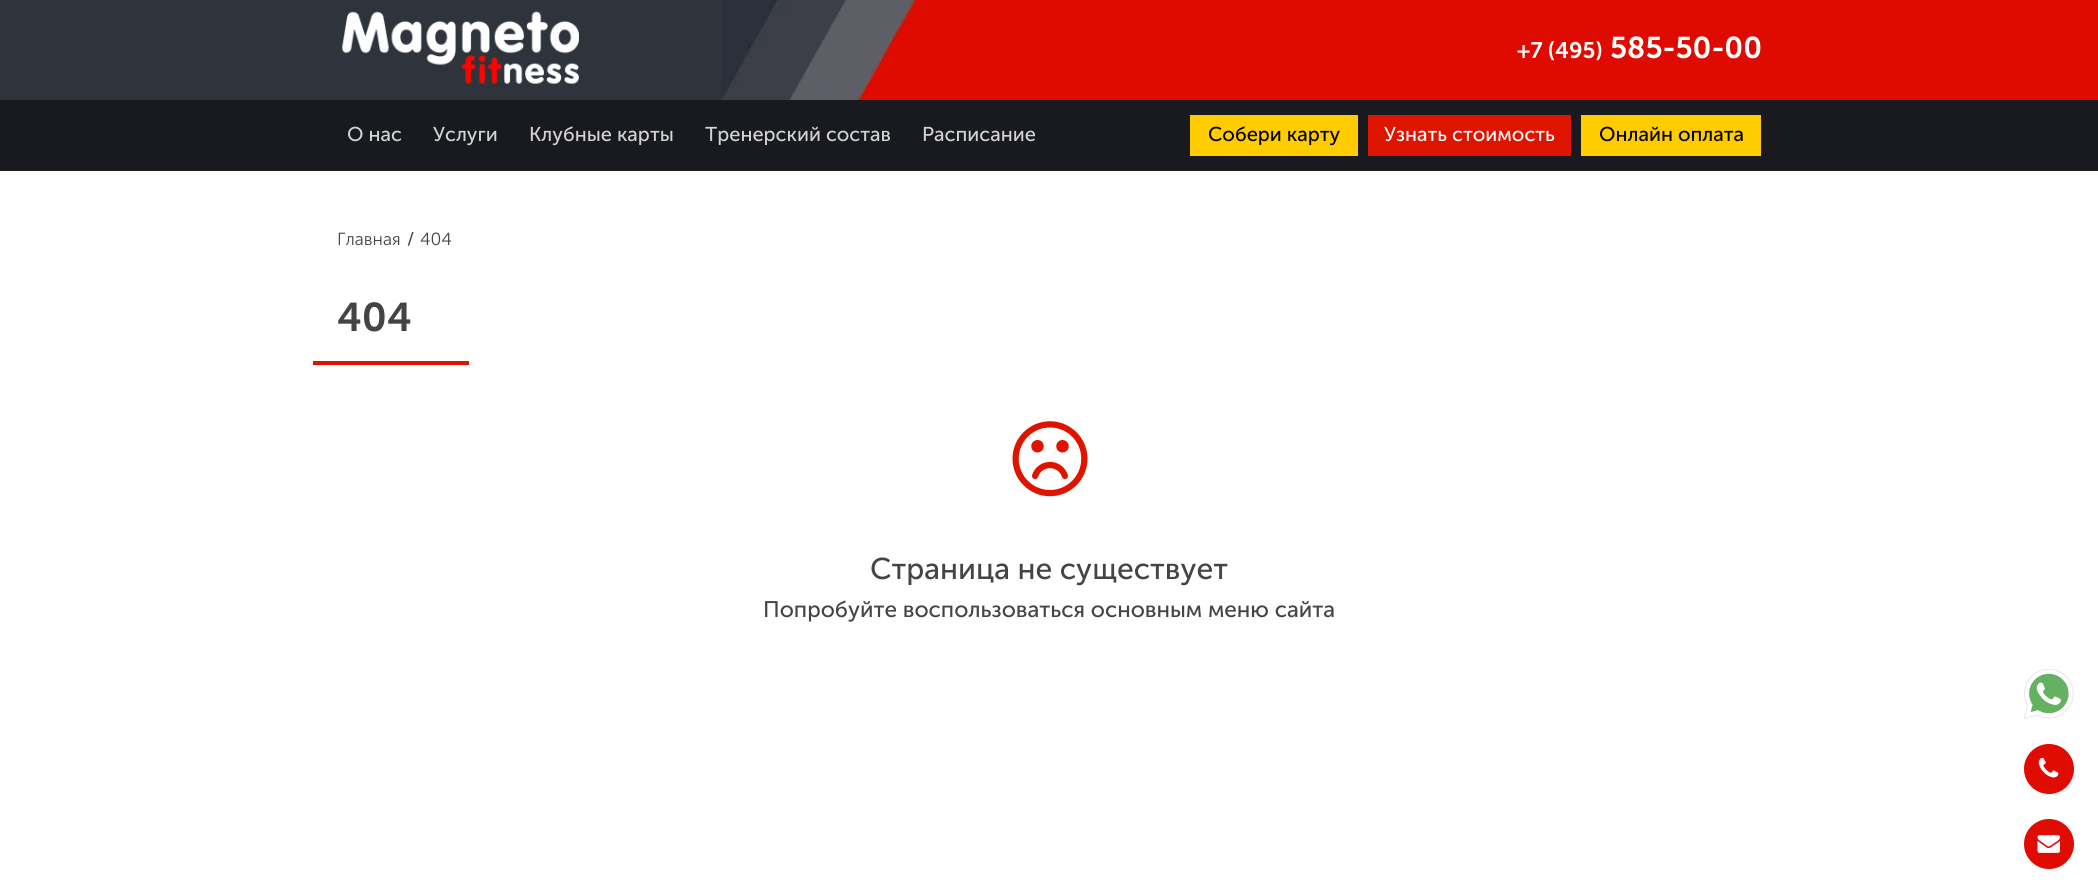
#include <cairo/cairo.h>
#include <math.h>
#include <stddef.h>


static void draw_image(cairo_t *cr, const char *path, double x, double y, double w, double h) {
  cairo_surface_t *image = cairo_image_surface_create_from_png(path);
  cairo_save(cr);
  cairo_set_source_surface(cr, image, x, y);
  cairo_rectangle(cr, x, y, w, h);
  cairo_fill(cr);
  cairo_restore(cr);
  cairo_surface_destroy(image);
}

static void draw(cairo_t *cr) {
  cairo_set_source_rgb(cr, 1, 1, 1);
  cairo_paint(cr);
  cairo_set_source_rgb(cr, 47 / 255.0, 51 / 255.0, 60 / 255.0);
  cairo_rectangle(cr, 0, 0, 721, 100);
  cairo_fill(cr);
  draw_image(cr, "images/1.png", 721, 0, 1377, 100);
  draw_image(cr, "images/2.png", 342, 11, 237, 73);
  cairo_set_source_rgb(cr, 24 / 255.0, 26 / 255.0, 32 / 255.0);
  cairo_rectangle(cr, 0, 100, 2098, 71);
  cairo_fill(cr);
  cairo_set_source_rgb(cr, 1, 204 / 255.0, 0);
  cairo_rectangle(cr, 1190, 115, 168, 41);
  cairo_fill(cr);
  cairo_set_source_rgb(cr, 222 / 255.0, 19 / 255.0, 0);
  cairo_rectangle(cr, 1368, 115, 203, 41);
  cairo_fill(cr);
  cairo_set_source_rgb(cr, 1, 204 / 255.0, 0);
  cairo_rectangle(cr, 1581, 115, 180, 41);
  cairo_fill(cr);
  cairo_set_source_rgb(cr, 222 / 255.0, 19 / 255.0, 0);
  cairo_rectangle(cr, 313, 361, 156, 4);
  cairo_fill(cr);
  draw_image(cr, "images/3.png", 1012, 421, 76, 76);
  draw_image(cr, "images/4.png", 2024, 669, 50, 50);
  cairo_set_source_rgb(cr, 224 / 255.0, 11 / 255.0, 1 / 255.0);
  cairo_arc(cr, 2049, 769, 25, 0, 2 * M_PI);
  cairo_fill(cr);
  draw_image(cr, "images/5.png", 2038, 757, 21, 21);
  cairo_arc(cr, 2049, 844, 25, 0, 2 * M_PI);
  cairo_fill(cr);
  draw_image(cr, "images/6.png", 2037, 835, 23, 18);
  cairo_select_font_face(cr, "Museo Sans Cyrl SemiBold", CAIRO_FONT_SLANT_NORMAL, CAIRO_FONT_WEIGHT_NORMAL);
  cairo_set_font_size(cr, 22.5);
  cairo_set_source_rgb(cr, 1, 1, 1);
  cairo_move_to(cr, 1517, 58);
  cairo_show_text(cr, "+7 (495)");
  cairo_set_font_size(cr, 30);
  cairo_move_to(cr, 1610, 58);
  cairo_show_text(cr, "585-50-00");
  cairo_select_font_face(cr, "Museo Sans Cyrl", CAIRO_FONT_SLANT_NORMAL, CAIRO_FONT_WEIGHT_NORMAL);
  cairo_set_font_size(cr, 20);
  cairo_set_source_rgb(cr, 211 / 255.0, 211 / 255.0, 211 / 255.0);
  cairo_move_to(cr, 347, 141);
  cairo_show_text(cr, "О нас");
  cairo_move_to(cr, 433, 141);
  cairo_show_text(cr, "Услуги");
  cairo_move_to(cr, 529, 141);
  cairo_show_text(cr, "Клубные карты");
  cairo_move_to(cr, 705, 141);
  cairo_show_text(cr, "Тренерский состав");
  cairo_move_to(cr, 922, 141);
  cairo_show_text(cr, "Расписание");
  cairo_set_source_rgb(cr, 0, 0, 0);
  cairo_move_to(cr, 1208, 141);
  cairo_show_text(cr, "Собери карту");
  cairo_set_source_rgb(cr, 1, 1, 1);
  cairo_move_to(cr, 1384, 141);
  cairo_show_text(cr, "Узнать стоимость");
  cairo_set_source_rgb(cr, 0, 0, 0);
  cairo_move_to(cr, 1599, 141);
  cairo_show_text(cr, "Онлайн оплата");
  cairo_select_font_face(cr, "Museo Sans Cyrl Light", CAIRO_FONT_SLANT_NORMAL, CAIRO_FONT_WEIGHT_NORMAL);
  cairo_set_font_size(cr, 17.5);
  cairo_set_source_rgb(cr, 68 / 255.0, 68 / 255.0, 70 / 255.0);
  cairo_move_to(cr, 337, 245);
  cairo_show_text(cr, "Главная");
  cairo_select_font_face(cr, "Museo Sans Cyrl", CAIRO_FONT_SLANT_NORMAL, CAIRO_FONT_WEIGHT_NORMAL);
  cairo_move_to(cr, 407, 245);
  cairo_show_text(cr, "/");
  cairo_select_font_face(cr, "Museo Sans Cyrl Light", CAIRO_FONT_SLANT_NORMAL, CAIRO_FONT_WEIGHT_NORMAL);
  cairo_move_to(cr, 420, 245);
  cairo_show_text(cr, "404");
  cairo_select_font_face(cr, "Museo Sans Cyrl SemiBold", CAIRO_FONT_SLANT_NORMAL, CAIRO_FONT_WEIGHT_NORMAL);
  cairo_set_font_size(cr, 40);
  cairo_move_to(cr, 337, 331);
  cairo_show_text(cr, "404");
  cairo_select_font_face(cr, "Museo Sans Cyrl", CAIRO_FONT_SLANT_NORMAL, CAIRO_FONT_WEIGHT_NORMAL);
  cairo_set_font_size(cr, 30);
  cairo_move_to(cr, 870, 579);
  cairo_show_text(cr, "Страница не существует");
  cairo_set_font_size(cr, 22.5);
  cairo_move_to(cr, 763, 617);
  cairo_show_text(cr, "Попробуйте воспользоваться основным меню сайта");
}

int main(void) {
  cairo_surface_t *surface = cairo_image_surface_create(CAIRO_FORMAT_RGB24, 2098, 893);
  cairo_t *cr = cairo_create(surface);
  cairo_font_options_t *options = cairo_font_options_create();
  cairo_font_options_set_hint_metrics(options, CAIRO_HINT_METRICS_OFF);
  cairo_font_options_set_hint_style(options, CAIRO_HINT_STYLE_NONE);
  cairo_set_font_options(cr, options);
  cairo_set_miter_limit(cr, 4);
  draw(cr);
  cairo_surface_write_to_png(surface, "out.png");
  cairo_font_options_destroy(options);
  cairo_destroy(cr);
  cairo_surface_destroy(surface);
  return 0;
}
